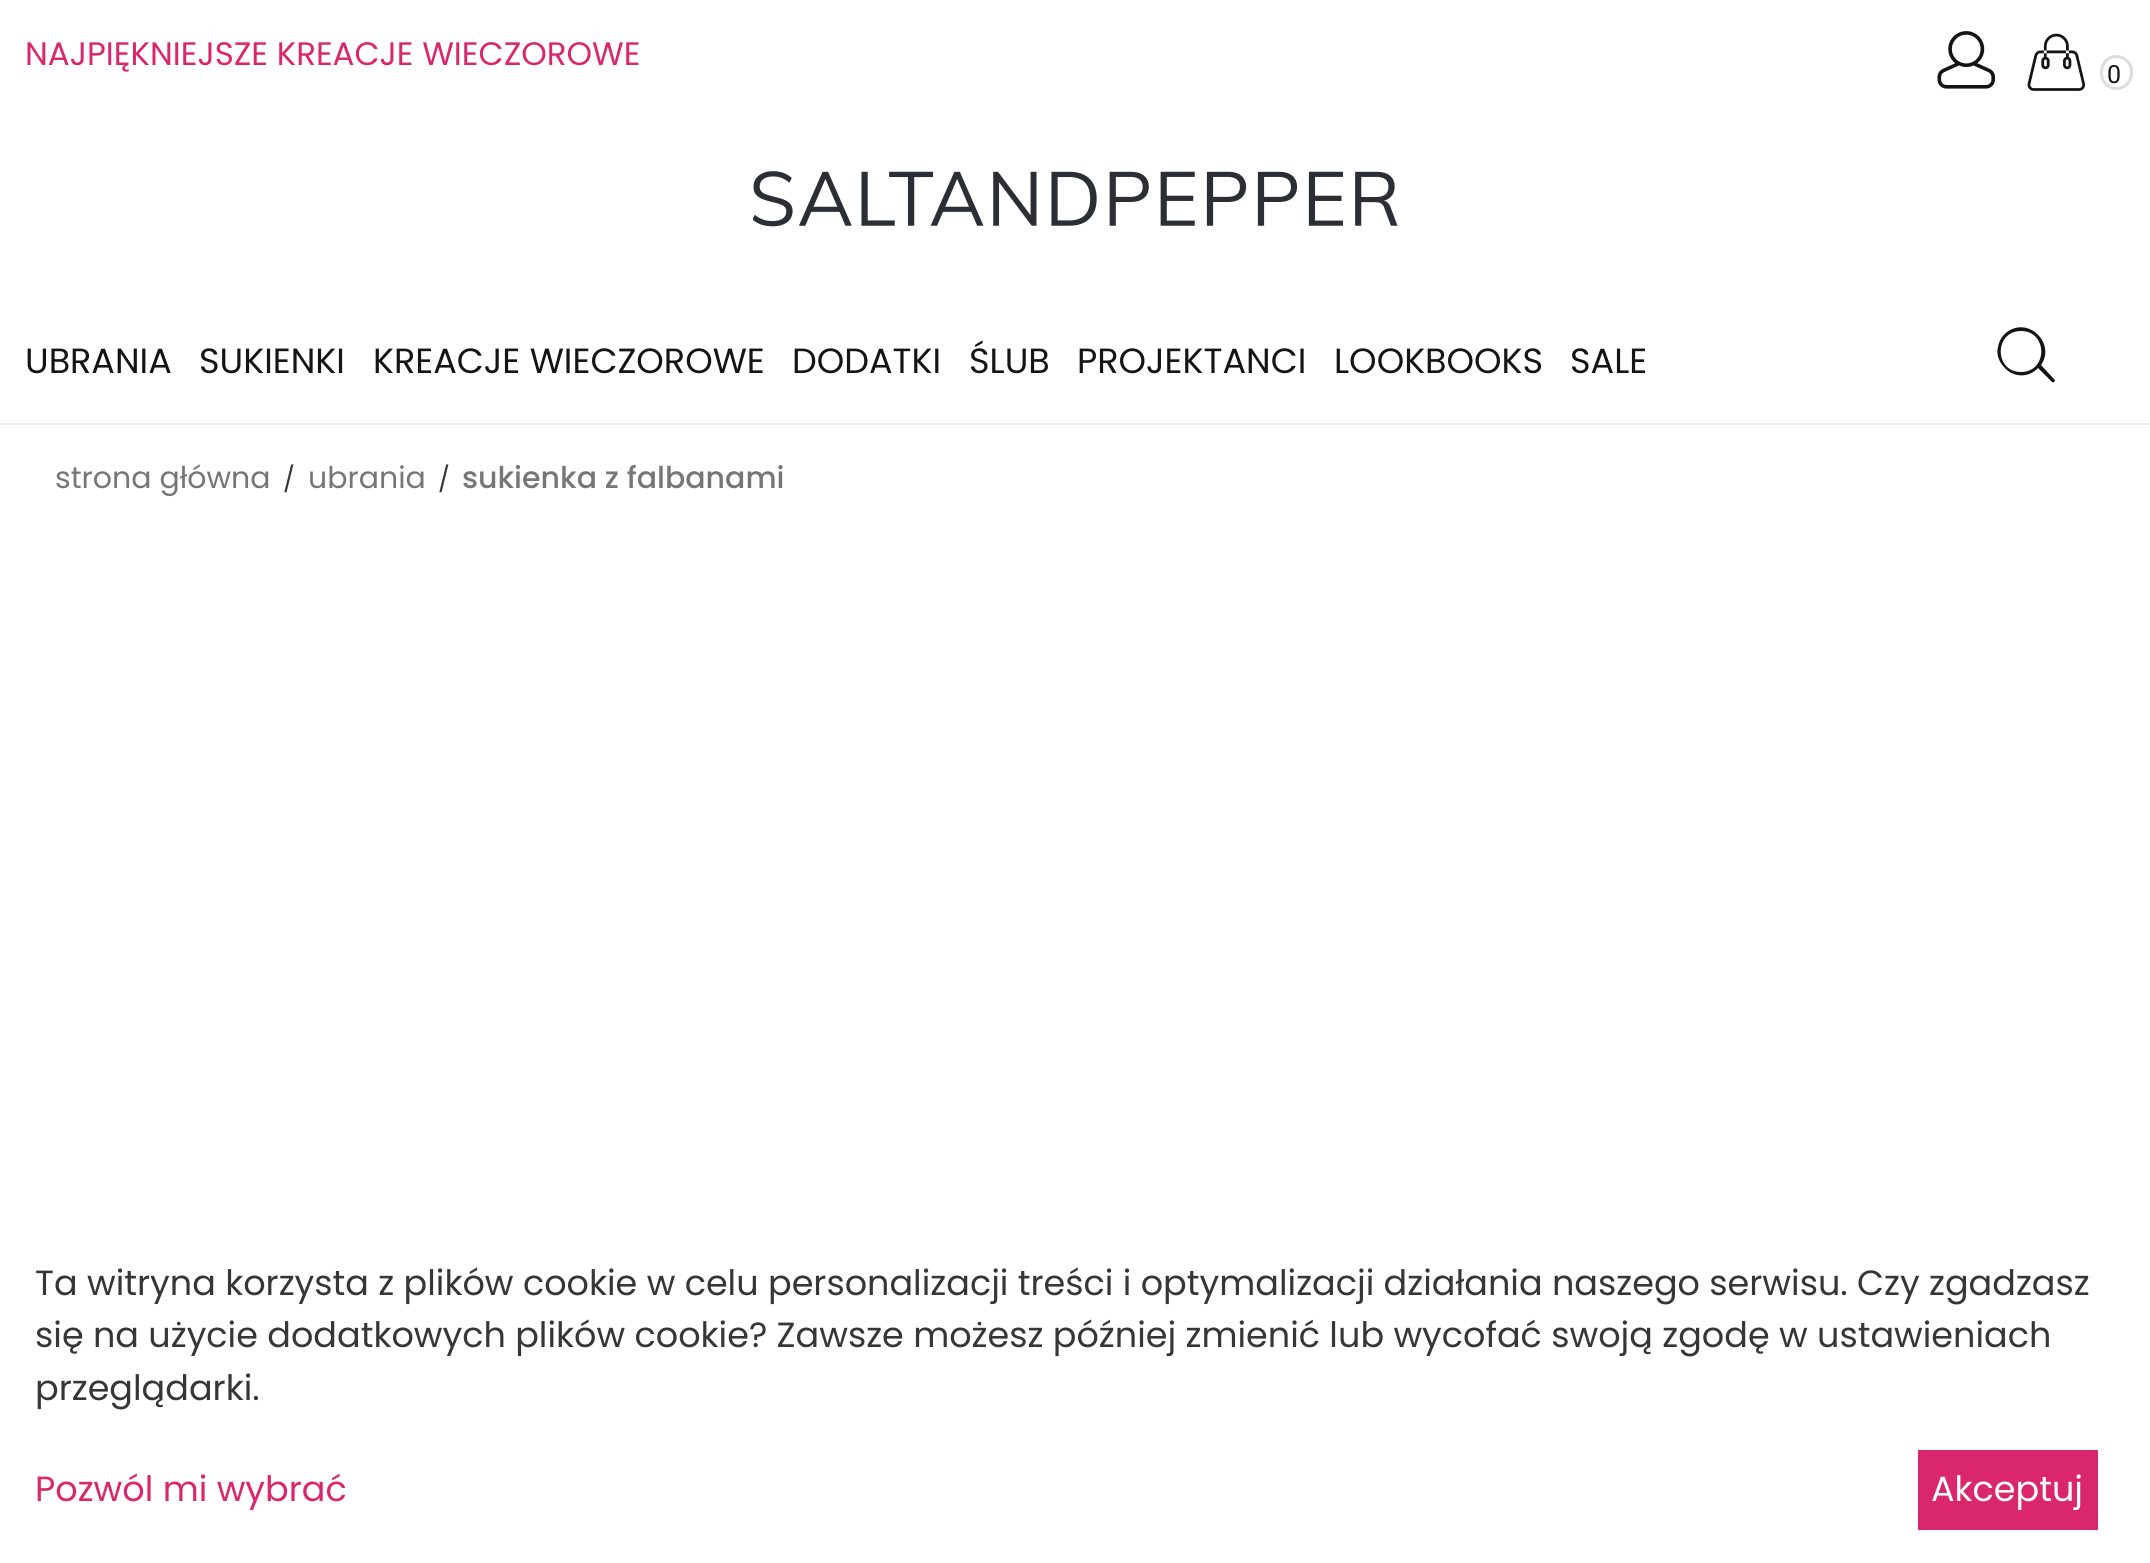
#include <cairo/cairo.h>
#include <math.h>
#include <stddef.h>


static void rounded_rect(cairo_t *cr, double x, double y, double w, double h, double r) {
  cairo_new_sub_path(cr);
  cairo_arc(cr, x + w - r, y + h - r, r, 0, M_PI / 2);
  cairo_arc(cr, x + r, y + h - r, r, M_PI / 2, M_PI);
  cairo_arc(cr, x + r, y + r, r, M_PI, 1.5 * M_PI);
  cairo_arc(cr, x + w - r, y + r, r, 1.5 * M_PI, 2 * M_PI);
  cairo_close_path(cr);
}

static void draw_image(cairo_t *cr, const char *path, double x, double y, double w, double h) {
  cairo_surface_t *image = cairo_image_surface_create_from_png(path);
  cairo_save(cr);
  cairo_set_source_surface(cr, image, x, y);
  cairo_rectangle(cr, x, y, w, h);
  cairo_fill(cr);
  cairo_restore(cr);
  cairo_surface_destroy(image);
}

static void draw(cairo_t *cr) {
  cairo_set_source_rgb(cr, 1, 1, 1);
  cairo_paint(cr);
  draw_image(cr, "images/1.png", 1937, 31, 58, 58);
  draw_image(cr, "images/2.png", 2027, 33, 59, 58);
  rounded_rect(cr, 2101.5, 56.5, 30, 32, 15);
  cairo_set_source_rgb(cr, 221 / 255.0, 221 / 255.0, 221 / 255.0);
  cairo_set_line_width(cr, 3);
  cairo_stroke(cr);
  draw_image(cr, "images/3.png", 753, 171, 645, 56);
  cairo_set_source_rgb(cr, 20 / 255.0, 20 / 255.0, 20 / 255.0);
  cairo_new_path(cr);
  cairo_move_to(cr, 2054, 379);
  cairo_line_to(cr, 2041, 365);
  cairo_curve_to(cr, 2056, 344, 2029, 316, 2007, 332);
  cairo_curve_to(cr, 2002, 336, 1999, 341, 1998, 347);
  cairo_curve_to(cr, 1996, 354, 1999, 362, 2004, 367);
  cairo_curve_to(cr, 2013, 378, 2029, 378, 2038, 368);
  cairo_line_to(cr, 2052, 382);
  cairo_curve_to(cr, 2054, 383, 2056, 381, 2054, 379);
  cairo_close_path(cr);
  cairo_move_to(cr, 2021, 372);
  cairo_curve_to(cr, 1994, 372, 1994, 331, 2021, 331);
  cairo_curve_to(cr, 2048, 331, 2048, 372, 2021, 372);
  cairo_close_path(cr);
  cairo_fill(cr);
  cairo_set_source_rgb(cr, 238 / 255.0, 238 / 255.0, 238 / 255.0);
  cairo_rectangle(cr, 0, 423, 2150, 2);
  cairo_fill(cr);
  cairo_set_source_rgb(cr, 217 / 255.0, 38 / 255.0, 109 / 255.0);
  cairo_rectangle(cr, 1918, 1450, 180, 80);
  cairo_fill(cr);
  cairo_select_font_face(cr, "Poppins", CAIRO_FONT_SLANT_NORMAL, CAIRO_FONT_WEIGHT_NORMAL);
  cairo_set_font_size(cr, 32.5);
  cairo_move_to(cr, 25, 65);
  cairo_show_text(cr, "NAJPIĘKNIEJSZE KREACJE WIECZOROWE");
  cairo_select_font_face(cr, "Roboto", CAIRO_FONT_SLANT_NORMAL, CAIRO_FONT_WEIGHT_NORMAL);
  cairo_set_font_size(cr, 25);
  cairo_set_source_rgb(cr, 20 / 255.0, 20 / 255.0, 20 / 255.0);
  cairo_move_to(cr, 2107, 83);
  cairo_show_text(cr, "0");
  cairo_select_font_face(cr, "Poppins", CAIRO_FONT_SLANT_NORMAL, CAIRO_FONT_WEIGHT_NORMAL);
  cairo_set_font_size(cr, 35);
  cairo_move_to(cr, 25, 373);
  cairo_show_text(cr, "UBRANIA");
  cairo_move_to(cr, 199, 373);
  cairo_show_text(cr, "SUKIENKI");
  cairo_move_to(cr, 373, 373);
  cairo_show_text(cr, "KREACJE WIECZOROWE");
  cairo_move_to(cr, 792, 373);
  cairo_show_text(cr, "DODATKI");
  cairo_move_to(cr, 969, 373);
  cairo_show_text(cr, "ŚLUB");
  cairo_move_to(cr, 1077, 373);
  cairo_show_text(cr, "PROJEKTANCI");
  cairo_move_to(cr, 1334, 373);
  cairo_show_text(cr, "LOOKBOOKS");
  cairo_move_to(cr, 1570, 373);
  cairo_show_text(cr, "SALE");
  cairo_set_font_size(cr, 30);
  cairo_set_source_rgb(cr, 118 / 255.0, 118 / 255.0, 118 / 255.0);
  cairo_move_to(cr, 55, 488);
  cairo_show_text(cr, "strona główna");
  cairo_set_font_size(cr, 25);
  cairo_set_source_rgb(cr, 54 / 255.0, 54 / 255.0, 54 / 255.0);
  cairo_move_to(cr, 283, 488);
  cairo_show_text(cr, "/");
  cairo_set_font_size(cr, 30);
  cairo_set_source_rgb(cr, 118 / 255.0, 118 / 255.0, 118 / 255.0);
  cairo_move_to(cr, 308, 488);
  cairo_show_text(cr, "ubrania");
  cairo_set_font_size(cr, 25);
  cairo_set_source_rgb(cr, 54 / 255.0, 54 / 255.0, 54 / 255.0);
  cairo_move_to(cr, 438, 488);
  cairo_show_text(cr, "/");
  cairo_select_font_face(cr, "Poppins Medium", CAIRO_FONT_SLANT_NORMAL, CAIRO_FONT_WEIGHT_NORMAL);
  cairo_set_font_size(cr, 30);
  cairo_set_source_rgb(cr, 118 / 255.0, 118 / 255.0, 118 / 255.0);
  cairo_move_to(cr, 462, 488);
  cairo_show_text(cr, "sukienka z falbanami");
  cairo_select_font_face(cr, "Poppins", CAIRO_FONT_SLANT_NORMAL, CAIRO_FONT_WEIGHT_NORMAL);
  cairo_set_font_size(cr, 35);
  cairo_set_source_rgb(cr, 54 / 255.0, 54 / 255.0, 54 / 255.0);
  cairo_move_to(cr, 35, 1295);
  cairo_show_text(cr, "Ta witryna korzysta z plików cookie w celu personalizacji treści i optymalizacji działania naszego serwisu. Czy zgadzasz");
  cairo_move_to(cr, 35, 1347);
  cairo_show_text(cr, "się na użycie dodatkowych plików cookie? Zawsze możesz później zmienić lub wycofać swoją zgodę w ustawieniach");
  cairo_move_to(cr, 35, 1400);
  cairo_show_text(cr, "przeglądarki.");
  cairo_set_source_rgb(cr, 217 / 255.0, 38 / 255.0, 109 / 255.0);
  cairo_move_to(cr, 35, 1501);
  cairo_show_text(cr, "Pozwól mi wybrać");
  cairo_set_source_rgb(cr, 1, 1, 1);
  cairo_move_to(cr, 1931, 1501);
  cairo_show_text(cr, "Akceptuj");
}

int main(void) {
  cairo_surface_t *surface = cairo_image_surface_create(CAIRO_FORMAT_RGB24, 2150, 1563);
  cairo_t *cr = cairo_create(surface);
  cairo_font_options_t *options = cairo_font_options_create();
  cairo_font_options_set_hint_metrics(options, CAIRO_HINT_METRICS_OFF);
  cairo_font_options_set_hint_style(options, CAIRO_HINT_STYLE_NONE);
  cairo_set_font_options(cr, options);
  cairo_set_miter_limit(cr, 4);
  draw(cr);
  cairo_surface_write_to_png(surface, "out.png");
  cairo_font_options_destroy(options);
  cairo_destroy(cr);
  cairo_surface_destroy(surface);
  return 0;
}
